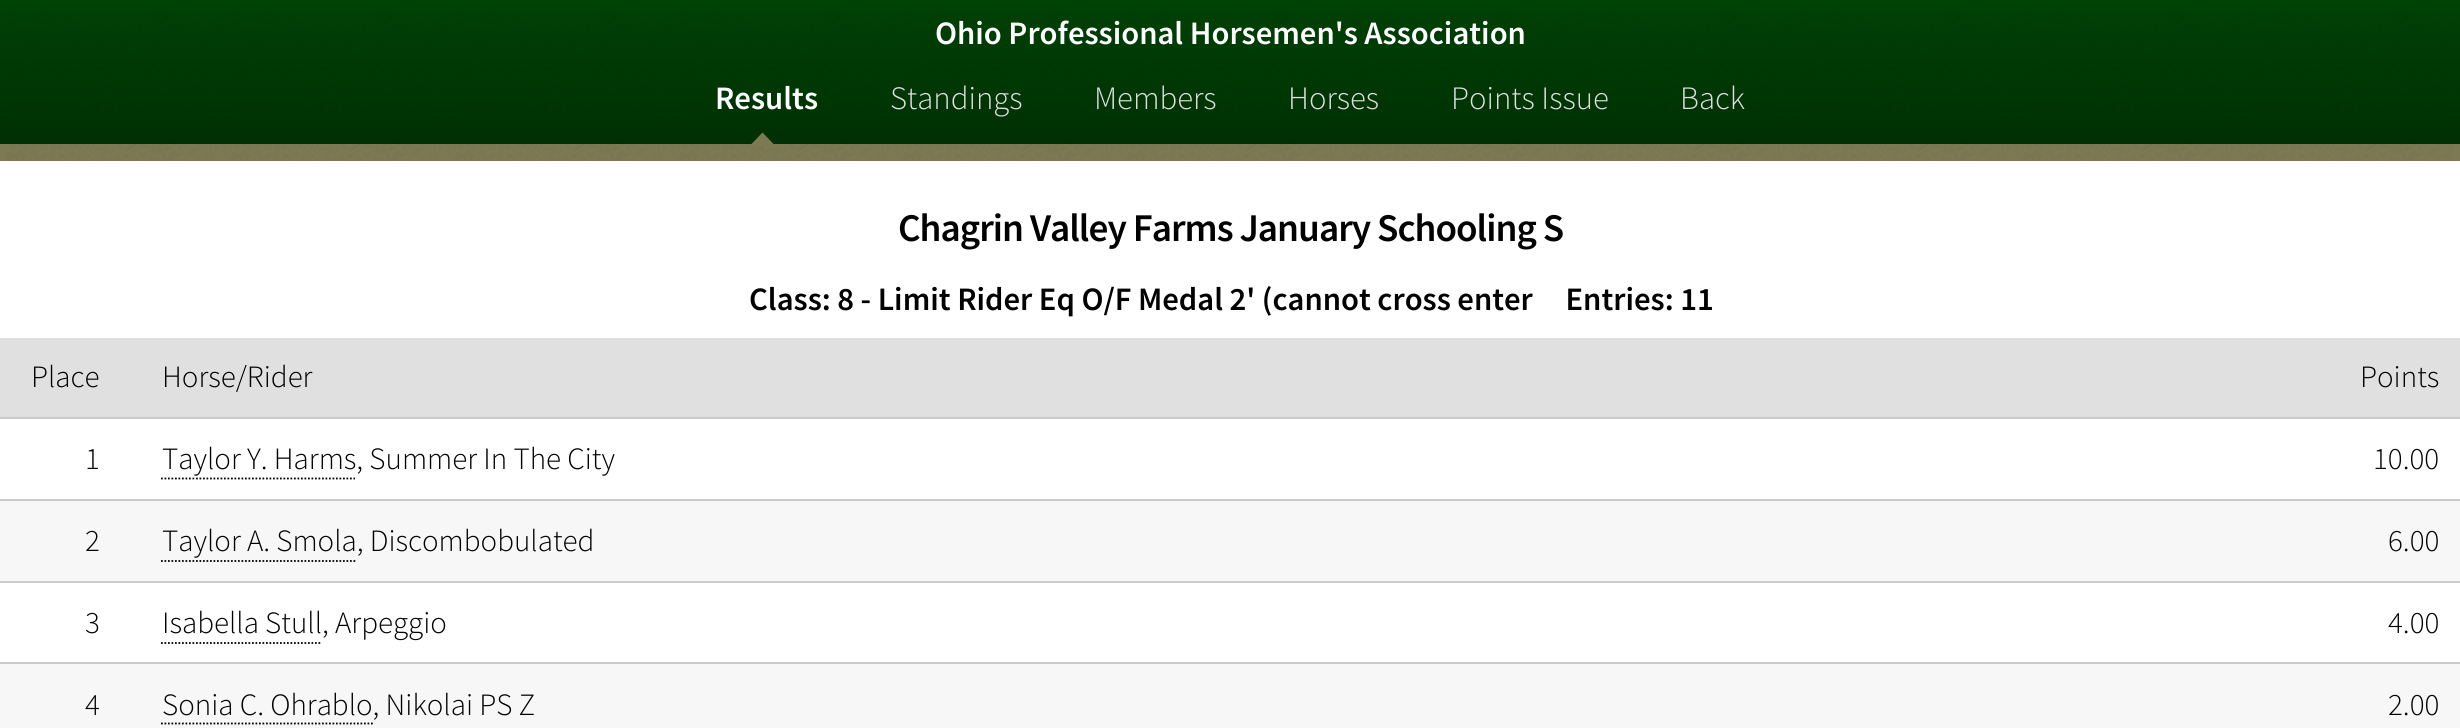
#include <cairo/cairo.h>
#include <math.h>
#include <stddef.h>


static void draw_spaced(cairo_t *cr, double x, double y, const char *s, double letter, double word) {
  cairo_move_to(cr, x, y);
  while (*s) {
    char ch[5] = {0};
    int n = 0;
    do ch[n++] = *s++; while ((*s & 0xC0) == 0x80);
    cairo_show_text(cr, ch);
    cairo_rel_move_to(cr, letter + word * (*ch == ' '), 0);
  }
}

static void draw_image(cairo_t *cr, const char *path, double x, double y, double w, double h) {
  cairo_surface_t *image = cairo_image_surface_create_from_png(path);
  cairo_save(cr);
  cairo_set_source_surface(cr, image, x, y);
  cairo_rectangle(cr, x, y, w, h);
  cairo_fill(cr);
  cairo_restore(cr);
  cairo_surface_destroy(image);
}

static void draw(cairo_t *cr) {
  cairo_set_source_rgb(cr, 1, 1, 1);
  cairo_paint(cr);
  cairo_set_source_rgb(cr, 0, 66 / 255.0, 5 / 255.0);
  cairo_rectangle(cr, 0, 0, 2460, 144);
  cairo_fill(cr);
  draw_image(cr, "images/1.png", 0, 11, 2460, 133);
  cairo_set_source_rgb(cr, 125 / 255.0, 121 / 255.0, 83 / 255.0);
  cairo_rectangle(cr, 0, 144, 2460, 17);
  cairo_fill(cr);
  draw_image(cr, "images/3.png", 7, 144, 2446, 17);
  cairo_new_path(cr);
  cairo_move_to(cr, 762.5, 132.5);
  cairo_line_to(cr, 774, 144.5);
  cairo_line_to(cr, 762.5, 156);
  cairo_line_to(cr, 751, 144.5);
  cairo_close_path(cr);
  cairo_fill(cr);
  draw_image(cr, "images/2.png", 757, 146, 7, 7);
  cairo_set_source_rgb(cr, 224 / 255.0, 224 / 255.0, 224 / 255.0);
  cairo_rectangle(cr, 0, 338, 2460, 79);
  cairo_fill(cr);
  cairo_set_source_rgb(cr, 203 / 255.0, 203 / 255.0, 203 / 255.0);
  cairo_rectangle(cr, 0, 417, 2460, 2);
  cairo_fill(cr);
  cairo_new_path(cr);
  cairo_move_to(cr, 161, 478.5);
  cairo_line_to(cr, 355, 478.5);
  cairo_set_source_rgb(cr, 0, 0, 0);
  cairo_set_line_width(cr, 1.8);
  cairo_set_dash(cr, (double[]){1.75, 1.75}, 2, 0);
  cairo_stroke(cr);
  cairo_set_source_rgb(cr, 203 / 255.0, 203 / 255.0, 203 / 255.0);
  cairo_rectangle(cr, 0, 499, 2460, 2);
  cairo_fill(cr);
  cairo_set_source_rgb(cr, 247 / 255.0, 247 / 255.0, 247 / 255.0);
  cairo_rectangle(cr, 0, 501, 2460, 80);
  cairo_fill(cr);
  cairo_new_path(cr);
  cairo_move_to(cr, 161, 561);
  cairo_line_to(cr, 357, 561);
  cairo_set_source_rgb(cr, 0, 0, 0);
  cairo_stroke(cr);
  cairo_set_source_rgb(cr, 203 / 255.0, 203 / 255.0, 203 / 255.0);
  cairo_rectangle(cr, 0, 581, 2460, 2);
  cairo_fill(cr);
  cairo_new_path(cr);
  cairo_move_to(cr, 161, 643);
  cairo_line_to(cr, 322, 643);
  cairo_set_source_rgb(cr, 0, 0, 0);
  cairo_stroke(cr);
  cairo_set_source_rgb(cr, 203 / 255.0, 203 / 255.0, 203 / 255.0);
  cairo_rectangle(cr, 0, 662, 2460, 2);
  cairo_fill(cr);
  cairo_set_source_rgb(cr, 247 / 255.0, 247 / 255.0, 247 / 255.0);
  cairo_rectangle(cr, 0, 664, 2460, 64);
  cairo_fill(cr);
  cairo_new_path(cr);
  cairo_move_to(cr, 161, 723.5);
  cairo_line_to(cr, 373, 723.5);
  cairo_set_source_rgb(cr, 0, 0, 0);
  cairo_stroke(cr);
  cairo_select_font_face(cr, "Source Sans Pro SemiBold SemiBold", CAIRO_FONT_SLANT_NORMAL, CAIRO_FONT_WEIGHT_NORMAL);
  cairo_set_font_size(cr, 32.7);
  cairo_set_source_rgb(cr, 1, 1, 1);
  cairo_move_to(cr, 935, 44);
  cairo_show_text(cr, "Ohio Professional Horsemen's Association");
  cairo_move_to(cr, 715, 109);
  cairo_show_text(cr, "Results");
  cairo_select_font_face(cr, "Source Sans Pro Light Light", CAIRO_FONT_SLANT_NORMAL, CAIRO_FONT_WEIGHT_NORMAL);
  cairo_set_source_rgb(cr, 224 / 255.0, 224 / 255.0, 224 / 255.0);
  cairo_move_to(cr, 890, 109);
  cairo_show_text(cr, "Standings");
  cairo_move_to(cr, 1094, 109);
  cairo_show_text(cr, "Members");
  cairo_move_to(cr, 1288, 109);
  cairo_show_text(cr, "Horses");
  cairo_move_to(cr, 1451, 109);
  cairo_show_text(cr, "Points Issue");
  cairo_move_to(cr, 1680, 109);
  cairo_show_text(cr, "Back");
  cairo_select_font_face(cr, "Source Sans Pro SemiBold SemiBold", CAIRO_FONT_SLANT_NORMAL, CAIRO_FONT_WEIGHT_NORMAL);
  cairo_set_font_size(cr, 39.25);
  cairo_set_source_rgb(cr, 0, 0, 0);
  draw_spaced(cr, 898, 241, "Chagrin Valley Farms January Schooling S", -1, 0);
  cairo_set_font_size(cr, 32.7);
  cairo_move_to(cr, 749, 310);
  cairo_show_text(cr, "Class: 8 - Limit Rider Eq O/F Medal 2' (cannot cross enter     Entries: 11");
  cairo_select_font_face(cr, "Source Sans Pro Light Light", CAIRO_FONT_SLANT_NORMAL, CAIRO_FONT_WEIGHT_NORMAL);
  cairo_set_font_size(cr, 31);
  cairo_move_to(cr, 31, 387);
  cairo_show_text(cr, "Place");
  cairo_move_to(cr, 162, 387);
  cairo_show_text(cr, "Horse/Rider");
  cairo_move_to(cr, 2360, 387);
  cairo_show_text(cr, "Points");
  cairo_move_to(cr, 85, 469);
  cairo_show_text(cr, "1");
  cairo_move_to(cr, 162, 469);
  cairo_show_text(cr, "Taylor Y. Harms, Summer In The City");
  cairo_move_to(cr, 2373, 469);
  cairo_show_text(cr, "10.00");
  cairo_move_to(cr, 85, 551);
  cairo_show_text(cr, "2");
  cairo_move_to(cr, 162, 551);
  cairo_show_text(cr, "Taylor A. Smola, Discombobulated");
  cairo_move_to(cr, 2388, 551);
  cairo_show_text(cr, "6.00");
  cairo_move_to(cr, 85, 633);
  cairo_show_text(cr, "3");
  cairo_move_to(cr, 162, 633);
  cairo_show_text(cr, "Isabella Stull, Arpeggio");
  cairo_move_to(cr, 2388, 633);
  cairo_show_text(cr, "4.00");
  cairo_move_to(cr, 85, 715);
  cairo_show_text(cr, "4");
  cairo_move_to(cr, 162, 715);
  cairo_show_text(cr, "Sonia C. Ohrablo, Nikolai PS Z");
  cairo_move_to(cr, 2388, 715);
  cairo_show_text(cr, "2.00");
}

int main(void) {
  cairo_surface_t *surface = cairo_image_surface_create(CAIRO_FORMAT_RGB24, 2460, 728);
  cairo_t *cr = cairo_create(surface);
  cairo_font_options_t *options = cairo_font_options_create();
  cairo_font_options_set_hint_metrics(options, CAIRO_HINT_METRICS_OFF);
  cairo_font_options_set_hint_style(options, CAIRO_HINT_STYLE_NONE);
  cairo_set_font_options(cr, options);
  cairo_set_miter_limit(cr, 4);
  draw(cr);
  cairo_surface_write_to_png(surface, "out.png");
  cairo_font_options_destroy(options);
  cairo_destroy(cr);
  cairo_surface_destroy(surface);
  return 0;
}
